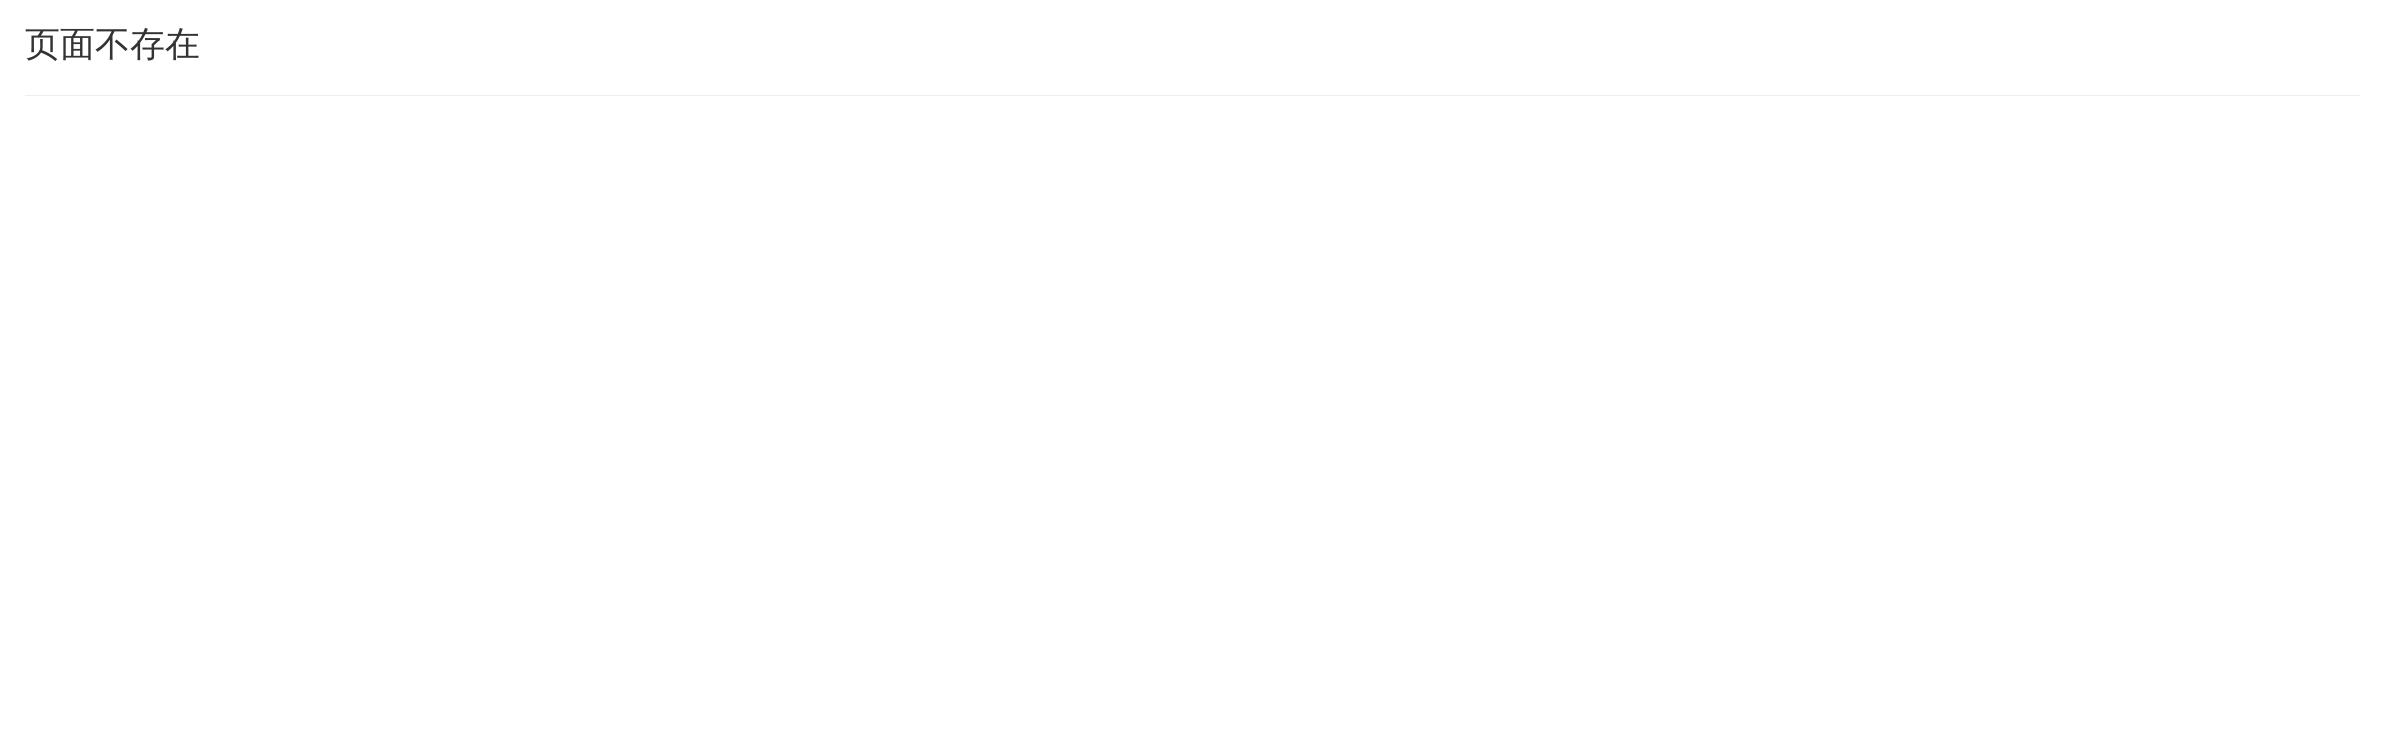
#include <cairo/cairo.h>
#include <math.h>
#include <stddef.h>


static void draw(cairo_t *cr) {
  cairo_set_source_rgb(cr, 1, 1, 1);
  cairo_paint(cr);
  cairo_set_source_rgb(cr, 238 / 255.0, 238 / 255.0, 238 / 255.0);
  cairo_rectangle(cr, 25, 95, 2335, 1);
  cairo_fill(cr);
  cairo_select_font_face(cr, "WenQuanYi Zen Hei Medium", CAIRO_FONT_SLANT_NORMAL, CAIRO_FONT_WEIGHT_NORMAL);
  cairo_set_font_size(cr, 35);
  cairo_set_source_rgb(cr, 51 / 255.0, 51 / 255.0, 51 / 255.0);
  cairo_move_to(cr, 25, 56);
  cairo_show_text(cr, "页面不存在");
}

int main(void) {
  cairo_surface_t *surface = cairo_image_surface_create(CAIRO_FORMAT_RGB24, 2385, 746);
  cairo_t *cr = cairo_create(surface);
  cairo_font_options_t *options = cairo_font_options_create();
  cairo_font_options_set_hint_metrics(options, CAIRO_HINT_METRICS_OFF);
  cairo_font_options_set_hint_style(options, CAIRO_HINT_STYLE_NONE);
  cairo_set_font_options(cr, options);
  cairo_set_miter_limit(cr, 4);
  draw(cr);
  cairo_surface_write_to_png(surface, "out.png");
  cairo_font_options_destroy(options);
  cairo_destroy(cr);
  cairo_surface_destroy(surface);
  return 0;
}
